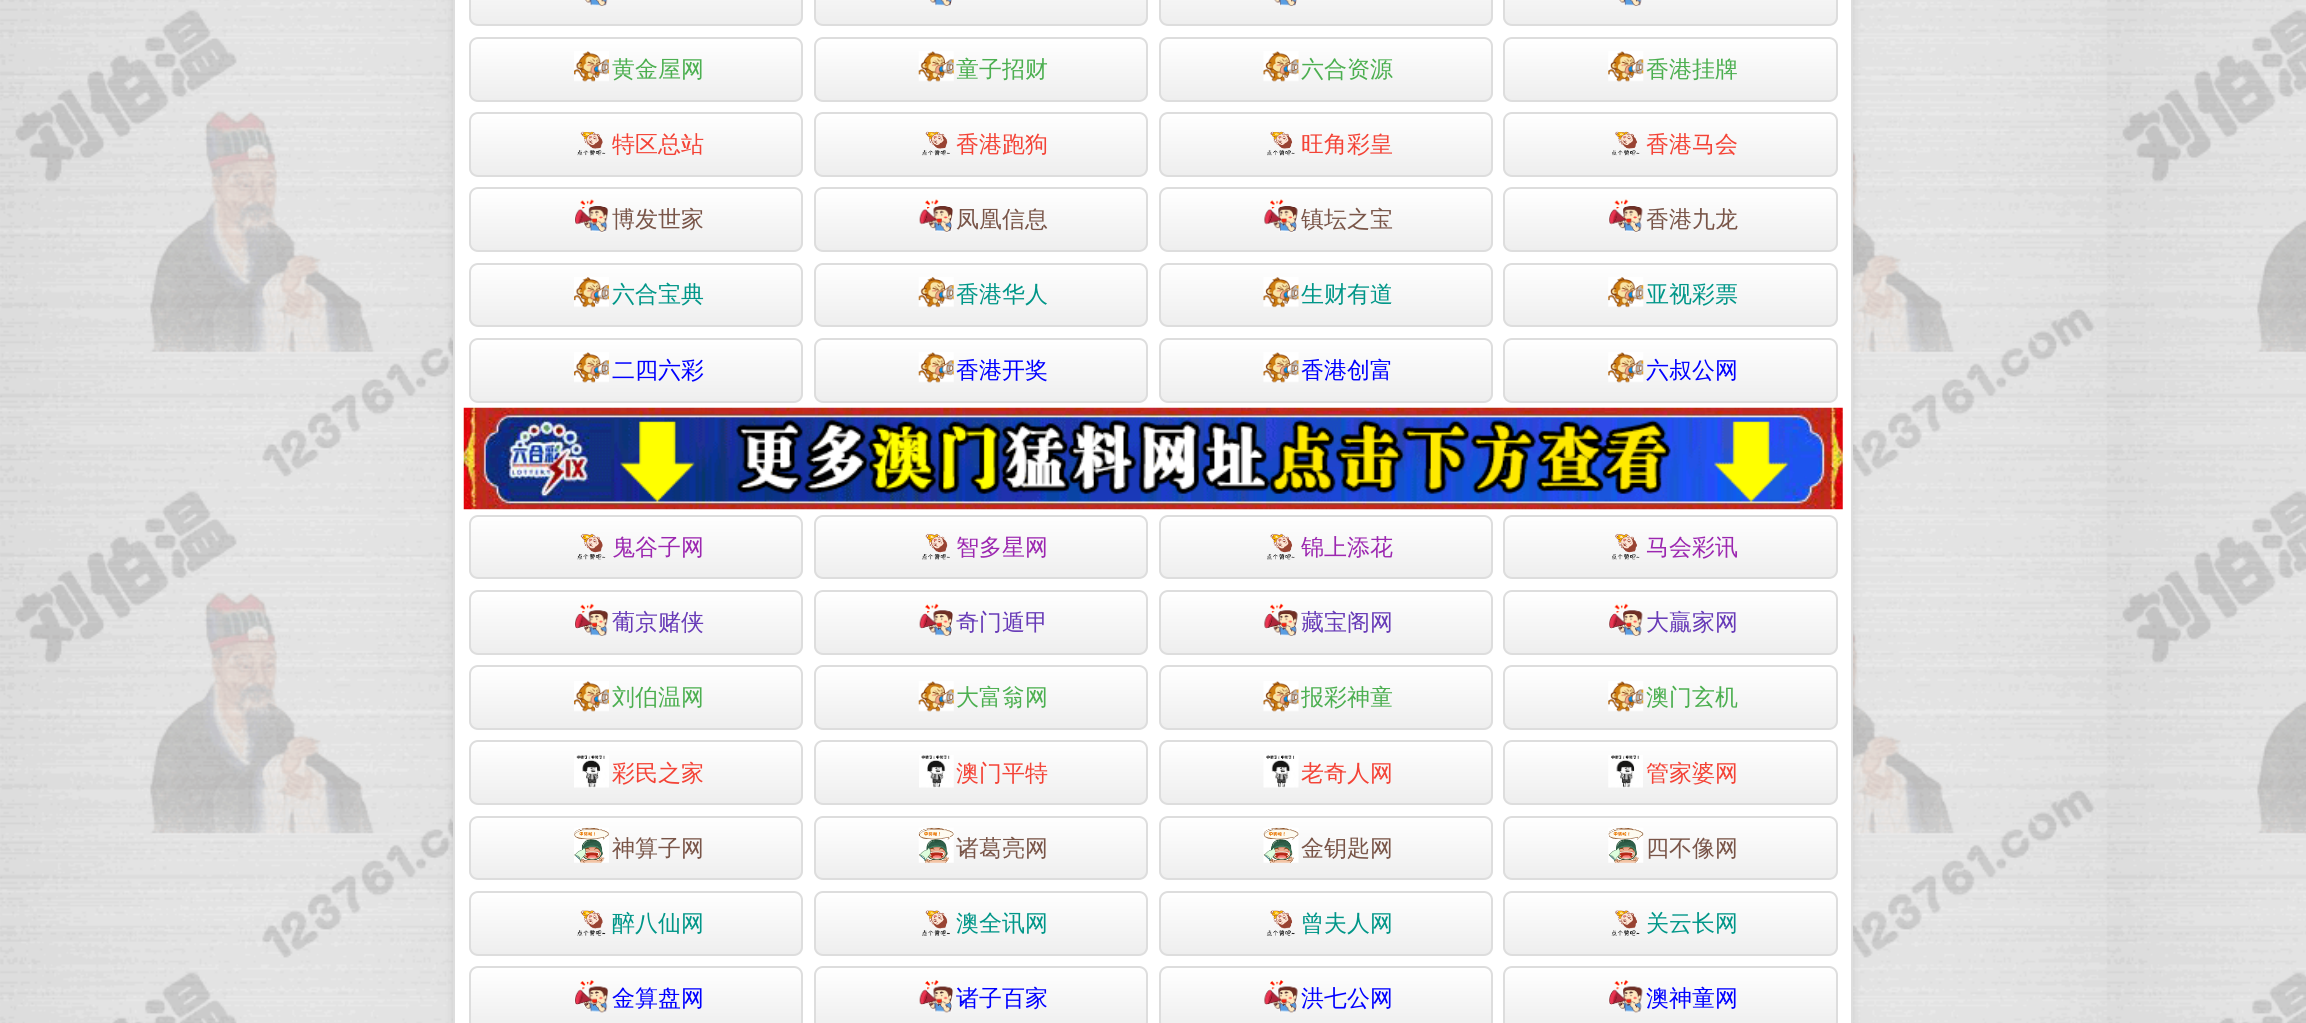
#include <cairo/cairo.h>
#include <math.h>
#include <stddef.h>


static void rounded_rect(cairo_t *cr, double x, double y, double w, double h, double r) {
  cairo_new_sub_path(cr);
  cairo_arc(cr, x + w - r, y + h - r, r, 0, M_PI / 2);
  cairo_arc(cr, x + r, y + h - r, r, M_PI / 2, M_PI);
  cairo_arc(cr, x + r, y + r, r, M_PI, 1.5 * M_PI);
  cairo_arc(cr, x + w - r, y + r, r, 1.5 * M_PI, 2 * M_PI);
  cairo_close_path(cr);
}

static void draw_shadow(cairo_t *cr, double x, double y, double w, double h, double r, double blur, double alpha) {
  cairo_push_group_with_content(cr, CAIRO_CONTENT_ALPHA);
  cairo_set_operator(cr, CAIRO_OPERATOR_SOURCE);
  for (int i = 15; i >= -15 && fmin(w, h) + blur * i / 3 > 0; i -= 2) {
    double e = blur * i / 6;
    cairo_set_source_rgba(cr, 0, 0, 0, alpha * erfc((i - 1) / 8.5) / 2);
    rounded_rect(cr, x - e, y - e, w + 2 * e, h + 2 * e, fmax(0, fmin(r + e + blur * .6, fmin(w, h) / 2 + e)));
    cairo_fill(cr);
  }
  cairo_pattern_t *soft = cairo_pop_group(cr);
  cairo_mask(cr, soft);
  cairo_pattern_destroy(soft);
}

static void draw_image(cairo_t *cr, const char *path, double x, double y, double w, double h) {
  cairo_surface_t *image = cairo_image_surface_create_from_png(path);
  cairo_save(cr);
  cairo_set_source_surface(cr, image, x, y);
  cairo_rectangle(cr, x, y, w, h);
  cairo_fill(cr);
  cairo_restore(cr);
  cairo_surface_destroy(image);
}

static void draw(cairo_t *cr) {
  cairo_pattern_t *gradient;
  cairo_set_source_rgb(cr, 1, 1, 1);
  cairo_paint(cr);
  draw_image(cr, "images/1.png", 0, 0, 2306, 1023);
  cairo_set_source_rgb(cr, 0, 0, 0);
  draw_shadow(cr, 453, -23, 1400, 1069, 9, 4.5, 0.1);
  cairo_set_source_rgb(cr, 1, 1, 1);
  cairo_rectangle(cr, 454, -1, 1398, 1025);
  cairo_fill_preserve(cr);
  cairo_set_source_rgb(cr, 221 / 255.0, 221 / 255.0, 221 / 255.0);
  cairo_stroke(cr);
  cairo_save(cr);
  rounded_rect(cr, 469, -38, 334, 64, 9);
  cairo_clip(cr);
  gradient = cairo_pattern_create_linear(636, 25, 636, -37);
  cairo_pattern_add_color_stop_rgba(gradient, 0, 238 / 255.0, 238 / 255.0, 238 / 255.0, 1);
  cairo_pattern_add_color_stop_rgba(gradient, 1, 1, 1, 1, 1);
  cairo_set_source(cr, gradient);
  cairo_pattern_destroy(gradient);
  cairo_rectangle(cr, 469, 0, 334, 25);
  cairo_fill(cr);
  cairo_restore(cr);
  rounded_rect(cr, 470, -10, 332, 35, 8);
  cairo_stroke(cr);
  draw_image(cr, "images/2.png", 585, 0, 23, 6);
  cairo_save(cr);
  rounded_rect(cr, 814, -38, 334, 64, 9);
  cairo_clip(cr);
  gradient = cairo_pattern_create_linear(981, 25, 981, -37);
  cairo_pattern_add_color_stop_rgba(gradient, 0, 238 / 255.0, 238 / 255.0, 238 / 255.0, 1);
  cairo_pattern_add_color_stop_rgba(gradient, 1, 1, 1, 1, 1);
  cairo_set_source(cr, gradient);
  cairo_pattern_destroy(gradient);
  cairo_rectangle(cr, 814, 0, 334, 25);
  cairo_fill(cr);
  cairo_restore(cr);
  rounded_rect(cr, 815, -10, 332, 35, 8);
  cairo_stroke(cr);
  draw_image(cr, "images/3.png", 930, 0, 22, 6);
  cairo_save(cr);
  rounded_rect(cr, 1159, -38, 334, 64, 9);
  cairo_clip(cr);
  gradient = cairo_pattern_create_linear(1326, 25, 1326, -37);
  cairo_pattern_add_color_stop_rgba(gradient, 0, 238 / 255.0, 238 / 255.0, 238 / 255.0, 1);
  cairo_pattern_add_color_stop_rgba(gradient, 1, 1, 1, 1, 1);
  cairo_set_source(cr, gradient);
  cairo_pattern_destroy(gradient);
  cairo_rectangle(cr, 1159, 0, 334, 25);
  cairo_fill(cr);
  cairo_restore(cr);
  rounded_rect(cr, 1160, -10, 332, 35, 8);
  cairo_stroke(cr);
  draw_image(cr, "images/4.png", 1274, 0, 23, 6);
  cairo_save(cr);
  rounded_rect(cr, 1503, -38, 335, 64, 9);
  cairo_clip(cr);
  gradient = cairo_pattern_create_linear(1670, 25, 1670, -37);
  cairo_pattern_add_color_stop_rgba(gradient, 0, 238 / 255.0, 238 / 255.0, 238 / 255.0, 1);
  cairo_pattern_add_color_stop_rgba(gradient, 1, 1, 1, 1, 1);
  cairo_set_source(cr, gradient);
  cairo_pattern_destroy(gradient);
  cairo_rectangle(cr, 1503, 0, 335, 25);
  cairo_fill(cr);
  cairo_restore(cr);
  rounded_rect(cr, 1504, -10, 333, 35, 8);
  cairo_stroke(cr);
  draw_image(cr, "images/5.png", 1619, 0, 23, 6);
  cairo_save(cr);
  rounded_rect(cr, 469, 37, 334, 65, 9);
  cairo_clip(cr);
  gradient = cairo_pattern_create_linear(636, 100, 636, 39);
  cairo_pattern_add_color_stop_rgba(gradient, 0, 238 / 255.0, 238 / 255.0, 238 / 255.0, 1);
  cairo_pattern_add_color_stop_rgba(gradient, 1, 1, 1, 1, 1);
  cairo_set_source(cr, gradient);
  cairo_pattern_destroy(gradient);
  cairo_rectangle(cr, 469, 39, 334, 61);
  cairo_fill(cr);
  cairo_restore(cr);
  rounded_rect(cr, 470, 38, 332, 63, 8);
  cairo_stroke(cr);
  draw_image(cr, "images/6.png", 574, 51, 35, 31);
  cairo_save(cr);
  rounded_rect(cr, 814, 37, 334, 65, 9);
  cairo_clip(cr);
  gradient = cairo_pattern_create_linear(981, 100, 981, 39);
  cairo_pattern_add_color_stop_rgba(gradient, 0, 238 / 255.0, 238 / 255.0, 238 / 255.0, 1);
  cairo_pattern_add_color_stop_rgba(gradient, 1, 1, 1, 1, 1);
  cairo_set_source(cr, gradient);
  cairo_pattern_destroy(gradient);
  cairo_rectangle(cr, 814, 39, 334, 61);
  cairo_fill(cr);
  cairo_restore(cr);
  rounded_rect(cr, 815, 38, 332, 63, 8);
  cairo_stroke(cr);
  draw_image(cr, "images/7.png", 918, 51, 36, 31);
  cairo_save(cr);
  rounded_rect(cr, 1159, 37, 334, 65, 9);
  cairo_clip(cr);
  gradient = cairo_pattern_create_linear(1326, 100, 1326, 39);
  cairo_pattern_add_color_stop_rgba(gradient, 0, 238 / 255.0, 238 / 255.0, 238 / 255.0, 1);
  cairo_pattern_add_color_stop_rgba(gradient, 1, 1, 1, 1, 1);
  cairo_set_source(cr, gradient);
  cairo_pattern_destroy(gradient);
  cairo_rectangle(cr, 1159, 39, 334, 61);
  cairo_fill(cr);
  cairo_restore(cr);
  rounded_rect(cr, 1160, 38, 332, 63, 8);
  cairo_stroke(cr);
  draw_image(cr, "images/8.png", 1263, 51, 36, 31);
  cairo_save(cr);
  rounded_rect(cr, 1503, 37, 335, 65, 9);
  cairo_clip(cr);
  gradient = cairo_pattern_create_linear(1670, 100, 1670, 39);
  cairo_pattern_add_color_stop_rgba(gradient, 0, 238 / 255.0, 238 / 255.0, 238 / 255.0, 1);
  cairo_pattern_add_color_stop_rgba(gradient, 1, 1, 1, 1, 1);
  cairo_set_source(cr, gradient);
  cairo_pattern_destroy(gradient);
  cairo_rectangle(cr, 1503, 39, 335, 61);
  cairo_fill(cr);
  cairo_restore(cr);
  rounded_rect(cr, 1504, 38, 333, 63, 8);
  cairo_stroke(cr);
  draw_image(cr, "images/9.png", 1608, 51, 36, 31);
  cairo_save(cr);
  rounded_rect(cr, 469, 112, 334, 65, 9);
  cairo_clip(cr);
  gradient = cairo_pattern_create_linear(636, 175, 636, 114);
  cairo_pattern_add_color_stop_rgba(gradient, 0, 238 / 255.0, 238 / 255.0, 238 / 255.0, 1);
  cairo_pattern_add_color_stop_rgba(gradient, 1, 1, 1, 1, 1);
  cairo_set_source(cr, gradient);
  cairo_pattern_destroy(gradient);
  cairo_rectangle(cr, 469, 114, 334, 61);
  cairo_fill(cr);
  cairo_restore(cr);
  rounded_rect(cr, 470, 113, 332, 63, 8);
  cairo_stroke(cr);
  draw_image(cr, "images/10.png", 577, 131, 29, 25);
  cairo_save(cr);
  rounded_rect(cr, 814, 112, 334, 65, 9);
  cairo_clip(cr);
  gradient = cairo_pattern_create_linear(981, 175, 981, 114);
  cairo_pattern_add_color_stop_rgba(gradient, 0, 238 / 255.0, 238 / 255.0, 238 / 255.0, 1);
  cairo_pattern_add_color_stop_rgba(gradient, 1, 1, 1, 1, 1);
  cairo_set_source(cr, gradient);
  cairo_pattern_destroy(gradient);
  cairo_rectangle(cr, 814, 114, 334, 61);
  cairo_fill(cr);
  cairo_restore(cr);
  rounded_rect(cr, 815, 113, 332, 63, 8);
  cairo_stroke(cr);
  draw_image(cr, "images/11.png", 922, 131, 28, 25);
  cairo_save(cr);
  rounded_rect(cr, 1159, 112, 334, 65, 9);
  cairo_clip(cr);
  gradient = cairo_pattern_create_linear(1326, 175, 1326, 114);
  cairo_pattern_add_color_stop_rgba(gradient, 0, 238 / 255.0, 238 / 255.0, 238 / 255.0, 1);
  cairo_pattern_add_color_stop_rgba(gradient, 1, 1, 1, 1, 1);
  cairo_set_source(cr, gradient);
  cairo_pattern_destroy(gradient);
  cairo_rectangle(cr, 1159, 114, 334, 61);
  cairo_fill(cr);
  cairo_restore(cr);
  rounded_rect(cr, 1160, 113, 332, 63, 8);
  cairo_stroke(cr);
  draw_image(cr, "images/12.png", 1267, 131, 28, 25);
  cairo_save(cr);
  rounded_rect(cr, 1503, 112, 335, 65, 9);
  cairo_clip(cr);
  gradient = cairo_pattern_create_linear(1670, 175, 1670, 114);
  cairo_pattern_add_color_stop_rgba(gradient, 0, 238 / 255.0, 238 / 255.0, 238 / 255.0, 1);
  cairo_pattern_add_color_stop_rgba(gradient, 1, 1, 1, 1, 1);
  cairo_set_source(cr, gradient);
  cairo_pattern_destroy(gradient);
  cairo_rectangle(cr, 1503, 114, 335, 61);
  cairo_fill(cr);
  cairo_restore(cr);
  rounded_rect(cr, 1504, 113, 333, 63, 8);
  cairo_stroke(cr);
  draw_image(cr, "images/13.png", 1612, 131, 28, 25);
  cairo_save(cr);
  rounded_rect(cr, 469, 187, 334, 65, 9);
  cairo_clip(cr);
  gradient = cairo_pattern_create_linear(636, 250, 636, 189);
  cairo_pattern_add_color_stop_rgba(gradient, 0, 238 / 255.0, 238 / 255.0, 238 / 255.0, 1);
  cairo_pattern_add_color_stop_rgba(gradient, 1, 1, 1, 1, 1);
  cairo_set_source(cr, gradient);
  cairo_pattern_destroy(gradient);
  cairo_rectangle(cr, 469, 189, 334, 61);
  cairo_fill(cr);
  cairo_restore(cr);
  rounded_rect(cr, 470, 188, 332, 63, 8);
  cairo_stroke(cr);
  draw_image(cr, "images/14.png", 574, 199, 35, 34);
  cairo_save(cr);
  rounded_rect(cr, 814, 187, 334, 65, 9);
  cairo_clip(cr);
  gradient = cairo_pattern_create_linear(981, 250, 981, 189);
  cairo_pattern_add_color_stop_rgba(gradient, 0, 238 / 255.0, 238 / 255.0, 238 / 255.0, 1);
  cairo_pattern_add_color_stop_rgba(gradient, 1, 1, 1, 1, 1);
  cairo_set_source(cr, gradient);
  cairo_pattern_destroy(gradient);
  cairo_rectangle(cr, 814, 189, 334, 61);
  cairo_fill(cr);
  cairo_restore(cr);
  rounded_rect(cr, 815, 188, 332, 63, 8);
  cairo_stroke(cr);
  draw_image(cr, "images/15.png", 919, 199, 34, 34);
  cairo_save(cr);
  rounded_rect(cr, 1159, 187, 334, 65, 9);
  cairo_clip(cr);
  gradient = cairo_pattern_create_linear(1326, 250, 1326, 189);
  cairo_pattern_add_color_stop_rgba(gradient, 0, 238 / 255.0, 238 / 255.0, 238 / 255.0, 1);
  cairo_pattern_add_color_stop_rgba(gradient, 1, 1, 1, 1, 1);
  cairo_set_source(cr, gradient);
  cairo_pattern_destroy(gradient);
  cairo_rectangle(cr, 1159, 189, 334, 61);
  cairo_fill(cr);
  cairo_restore(cr);
  rounded_rect(cr, 1160, 188, 332, 63, 8);
  cairo_stroke(cr);
  draw_image(cr, "images/16.png", 1264, 199, 34, 34);
  cairo_save(cr);
  rounded_rect(cr, 1503, 187, 335, 65, 9);
  cairo_clip(cr);
  gradient = cairo_pattern_create_linear(1670, 250, 1670, 189);
  cairo_pattern_add_color_stop_rgba(gradient, 0, 238 / 255.0, 238 / 255.0, 238 / 255.0, 1);
  cairo_pattern_add_color_stop_rgba(gradient, 1, 1, 1, 1, 1);
  cairo_set_source(cr, gradient);
  cairo_pattern_destroy(gradient);
  cairo_rectangle(cr, 1503, 189, 335, 61);
  cairo_fill(cr);
  cairo_restore(cr);
  rounded_rect(cr, 1504, 188, 333, 63, 8);
  cairo_stroke(cr);
  draw_image(cr, "images/17.png", 1608, 199, 35, 34);
  cairo_save(cr);
  rounded_rect(cr, 469, 263, 334, 64, 9);
  cairo_clip(cr);
  gradient = cairo_pattern_create_linear(636, 326, 636, 264);
  cairo_pattern_add_color_stop_rgba(gradient, 0, 238 / 255.0, 238 / 255.0, 238 / 255.0, 1);
  cairo_pattern_add_color_stop_rgba(gradient, 1, 1, 1, 1, 1);
  cairo_set_source(cr, gradient);
  cairo_pattern_destroy(gradient);
  cairo_rectangle(cr, 469, 264, 334, 62);
  cairo_fill(cr);
  cairo_restore(cr);
  rounded_rect(cr, 470, 264, 332, 62, 8);
  cairo_stroke(cr);
  draw_image(cr, "images/18.png", 574, 277, 35, 31);
  cairo_save(cr);
  rounded_rect(cr, 814, 263, 334, 64, 9);
  cairo_clip(cr);
  gradient = cairo_pattern_create_linear(981, 326, 981, 264);
  cairo_pattern_add_color_stop_rgba(gradient, 0, 238 / 255.0, 238 / 255.0, 238 / 255.0, 1);
  cairo_pattern_add_color_stop_rgba(gradient, 1, 1, 1, 1, 1);
  cairo_set_source(cr, gradient);
  cairo_pattern_destroy(gradient);
  cairo_rectangle(cr, 814, 264, 334, 62);
  cairo_fill(cr);
  cairo_restore(cr);
  rounded_rect(cr, 815, 264, 332, 62, 8);
  cairo_stroke(cr);
  draw_image(cr, "images/19.png", 918, 277, 36, 31);
  cairo_save(cr);
  rounded_rect(cr, 1159, 263, 334, 64, 9);
  cairo_clip(cr);
  gradient = cairo_pattern_create_linear(1326, 326, 1326, 264);
  cairo_pattern_add_color_stop_rgba(gradient, 0, 238 / 255.0, 238 / 255.0, 238 / 255.0, 1);
  cairo_pattern_add_color_stop_rgba(gradient, 1, 1, 1, 1, 1);
  cairo_set_source(cr, gradient);
  cairo_pattern_destroy(gradient);
  cairo_rectangle(cr, 1159, 264, 334, 62);
  cairo_fill(cr);
  cairo_restore(cr);
  rounded_rect(cr, 1160, 264, 332, 62, 8);
  cairo_stroke(cr);
  draw_image(cr, "images/20.png", 1263, 277, 36, 31);
  cairo_save(cr);
  rounded_rect(cr, 1503, 263, 335, 64, 9);
  cairo_clip(cr);
  gradient = cairo_pattern_create_linear(1670, 326, 1670, 264);
  cairo_pattern_add_color_stop_rgba(gradient, 0, 238 / 255.0, 238 / 255.0, 238 / 255.0, 1);
  cairo_pattern_add_color_stop_rgba(gradient, 1, 1, 1, 1, 1);
  cairo_set_source(cr, gradient);
  cairo_pattern_destroy(gradient);
  cairo_rectangle(cr, 1503, 264, 335, 62);
  cairo_fill(cr);
  cairo_restore(cr);
  rounded_rect(cr, 1504, 264, 333, 62, 8);
  cairo_stroke(cr);
  draw_image(cr, "images/21.png", 1608, 277, 36, 31);
  cairo_save(cr);
  rounded_rect(cr, 469, 338, 334, 65, 9);
  cairo_clip(cr);
  gradient = cairo_pattern_create_linear(636, 401, 636, 340);
  cairo_pattern_add_color_stop_rgba(gradient, 0, 238 / 255.0, 238 / 255.0, 238 / 255.0, 1);
  cairo_pattern_add_color_stop_rgba(gradient, 1, 1, 1, 1, 1);
  cairo_set_source(cr, gradient);
  cairo_pattern_destroy(gradient);
  cairo_rectangle(cr, 469, 340, 334, 61);
  cairo_fill(cr);
  cairo_restore(cr);
  rounded_rect(cr, 470, 339, 332, 63, 8);
  cairo_stroke(cr);
  draw_image(cr, "images/6.png", 574, 352, 35, 31);
  cairo_save(cr);
  rounded_rect(cr, 814, 338, 334, 65, 9);
  cairo_clip(cr);
  gradient = cairo_pattern_create_linear(981, 401, 981, 340);
  cairo_pattern_add_color_stop_rgba(gradient, 0, 238 / 255.0, 238 / 255.0, 238 / 255.0, 1);
  cairo_pattern_add_color_stop_rgba(gradient, 1, 1, 1, 1, 1);
  cairo_set_source(cr, gradient);
  cairo_pattern_destroy(gradient);
  cairo_rectangle(cr, 814, 340, 334, 61);
  cairo_fill(cr);
  cairo_restore(cr);
  rounded_rect(cr, 815, 339, 332, 63, 8);
  cairo_stroke(cr);
  draw_image(cr, "images/7.png", 918, 352, 36, 31);
  cairo_save(cr);
  rounded_rect(cr, 1159, 338, 334, 65, 9);
  cairo_clip(cr);
  gradient = cairo_pattern_create_linear(1326, 401, 1326, 340);
  cairo_pattern_add_color_stop_rgba(gradient, 0, 238 / 255.0, 238 / 255.0, 238 / 255.0, 1);
  cairo_pattern_add_color_stop_rgba(gradient, 1, 1, 1, 1, 1);
  cairo_set_source(cr, gradient);
  cairo_pattern_destroy(gradient);
  cairo_rectangle(cr, 1159, 340, 334, 61);
  cairo_fill(cr);
  cairo_restore(cr);
  rounded_rect(cr, 1160, 339, 332, 63, 8);
  cairo_stroke(cr);
  draw_image(cr, "images/8.png", 1263, 352, 36, 31);
  cairo_save(cr);
  rounded_rect(cr, 1503, 338, 335, 65, 9);
  cairo_clip(cr);
  gradient = cairo_pattern_create_linear(1670, 401, 1670, 340);
  cairo_pattern_add_color_stop_rgba(gradient, 0, 238 / 255.0, 238 / 255.0, 238 / 255.0, 1);
  cairo_pattern_add_color_stop_rgba(gradient, 1, 1, 1, 1, 1);
  cairo_set_source(cr, gradient);
  cairo_pattern_destroy(gradient);
  cairo_rectangle(cr, 1503, 340, 335, 61);
  cairo_fill(cr);
  cairo_restore(cr);
  rounded_rect(cr, 1504, 339, 333, 63, 8);
  cairo_stroke(cr);
  draw_image(cr, "images/9.png", 1608, 352, 36, 31);
  draw_image(cr, "images/22.png", 463, 407, 1380, 103);
  cairo_save(cr);
  rounded_rect(cr, 469, 515, 334, 64, 9);
  cairo_clip(cr);
  gradient = cairo_pattern_create_linear(636, 578, 636, 516);
  cairo_pattern_add_color_stop_rgba(gradient, 0, 238 / 255.0, 238 / 255.0, 238 / 255.0, 1);
  cairo_pattern_add_color_stop_rgba(gradient, 1, 1, 1, 1, 1);
  cairo_set_source(cr, gradient);
  cairo_pattern_destroy(gradient);
  cairo_rectangle(cr, 469, 516, 334, 62);
  cairo_fill(cr);
  cairo_restore(cr);
  rounded_rect(cr, 470, 516, 332, 62, 8);
  cairo_stroke(cr);
  draw_image(cr, "images/23.png", 577, 533, 29, 27);
  cairo_save(cr);
  rounded_rect(cr, 814, 515, 334, 64, 9);
  cairo_clip(cr);
  gradient = cairo_pattern_create_linear(981, 578, 981, 516);
  cairo_pattern_add_color_stop_rgba(gradient, 0, 238 / 255.0, 238 / 255.0, 238 / 255.0, 1);
  cairo_pattern_add_color_stop_rgba(gradient, 1, 1, 1, 1, 1);
  cairo_set_source(cr, gradient);
  cairo_pattern_destroy(gradient);
  cairo_rectangle(cr, 814, 516, 334, 62);
  cairo_fill(cr);
  cairo_restore(cr);
  rounded_rect(cr, 815, 516, 332, 62, 8);
  cairo_stroke(cr);
  draw_image(cr, "images/24.png", 922, 533, 28, 27);
  cairo_save(cr);
  rounded_rect(cr, 1159, 515, 334, 64, 9);
  cairo_clip(cr);
  gradient = cairo_pattern_create_linear(1326, 578, 1326, 516);
  cairo_pattern_add_color_stop_rgba(gradient, 0, 238 / 255.0, 238 / 255.0, 238 / 255.0, 1);
  cairo_pattern_add_color_stop_rgba(gradient, 1, 1, 1, 1, 1);
  cairo_set_source(cr, gradient);
  cairo_pattern_destroy(gradient);
  cairo_rectangle(cr, 1159, 516, 334, 62);
  cairo_fill(cr);
  cairo_restore(cr);
  rounded_rect(cr, 1160, 516, 332, 62, 8);
  cairo_stroke(cr);
  draw_image(cr, "images/25.png", 1267, 533, 28, 27);
  cairo_save(cr);
  rounded_rect(cr, 1503, 515, 335, 64, 9);
  cairo_clip(cr);
  gradient = cairo_pattern_create_linear(1670, 578, 1670, 516);
  cairo_pattern_add_color_stop_rgba(gradient, 0, 238 / 255.0, 238 / 255.0, 238 / 255.0, 1);
  cairo_pattern_add_color_stop_rgba(gradient, 1, 1, 1, 1, 1);
  cairo_set_source(cr, gradient);
  cairo_pattern_destroy(gradient);
  cairo_rectangle(cr, 1503, 516, 335, 62);
  cairo_fill(cr);
  cairo_restore(cr);
  rounded_rect(cr, 1504, 516, 333, 62, 8);
  cairo_stroke(cr);
  draw_image(cr, "images/26.png", 1611, 533, 29, 27);
  cairo_save(cr);
  rounded_rect(cr, 469, 590, 334, 65, 9);
  cairo_clip(cr);
  gradient = cairo_pattern_create_linear(636, 653, 636, 592);
  cairo_pattern_add_color_stop_rgba(gradient, 0, 238 / 255.0, 238 / 255.0, 238 / 255.0, 1);
  cairo_pattern_add_color_stop_rgba(gradient, 1, 1, 1, 1, 1);
  cairo_set_source(cr, gradient);
  cairo_pattern_destroy(gradient);
  cairo_rectangle(cr, 469, 592, 334, 61);
  cairo_fill(cr);
  cairo_restore(cr);
  rounded_rect(cr, 470, 591, 332, 63, 8);
  cairo_stroke(cr);
  draw_image(cr, "images/27.png", 574, 603, 35, 33);
  cairo_save(cr);
  rounded_rect(cr, 814, 590, 334, 65, 9);
  cairo_clip(cr);
  gradient = cairo_pattern_create_linear(981, 653, 981, 592);
  cairo_pattern_add_color_stop_rgba(gradient, 0, 238 / 255.0, 238 / 255.0, 238 / 255.0, 1);
  cairo_pattern_add_color_stop_rgba(gradient, 1, 1, 1, 1, 1);
  cairo_set_source(cr, gradient);
  cairo_pattern_destroy(gradient);
  cairo_rectangle(cr, 814, 592, 334, 61);
  cairo_fill(cr);
  cairo_restore(cr);
  rounded_rect(cr, 815, 591, 332, 63, 8);
  cairo_stroke(cr);
  draw_image(cr, "images/28.png", 919, 603, 34, 33);
  cairo_save(cr);
  rounded_rect(cr, 1159, 590, 334, 65, 9);
  cairo_clip(cr);
  gradient = cairo_pattern_create_linear(1326, 653, 1326, 592);
  cairo_pattern_add_color_stop_rgba(gradient, 0, 238 / 255.0, 238 / 255.0, 238 / 255.0, 1);
  cairo_pattern_add_color_stop_rgba(gradient, 1, 1, 1, 1, 1);
  cairo_set_source(cr, gradient);
  cairo_pattern_destroy(gradient);
  cairo_rectangle(cr, 1159, 592, 334, 61);
  cairo_fill(cr);
  cairo_restore(cr);
  rounded_rect(cr, 1160, 591, 332, 63, 8);
  cairo_stroke(cr);
  draw_image(cr, "images/29.png", 1264, 603, 34, 33);
  cairo_save(cr);
  rounded_rect(cr, 1503, 590, 335, 65, 9);
  cairo_clip(cr);
  gradient = cairo_pattern_create_linear(1670, 653, 1670, 592);
  cairo_pattern_add_color_stop_rgba(gradient, 0, 238 / 255.0, 238 / 255.0, 238 / 255.0, 1);
  cairo_pattern_add_color_stop_rgba(gradient, 1, 1, 1, 1, 1);
  cairo_set_source(cr, gradient);
  cairo_pattern_destroy(gradient);
  cairo_rectangle(cr, 1503, 592, 335, 61);
  cairo_fill(cr);
  cairo_restore(cr);
  rounded_rect(cr, 1504, 591, 333, 63, 8);
  cairo_stroke(cr);
  draw_image(cr, "images/30.png", 1608, 603, 35, 33);
  cairo_save(cr);
  rounded_rect(cr, 469, 665, 334, 65, 9);
  cairo_clip(cr);
  gradient = cairo_pattern_create_linear(636, 728, 636, 667);
  cairo_pattern_add_color_stop_rgba(gradient, 0, 238 / 255.0, 238 / 255.0, 238 / 255.0, 1);
  cairo_pattern_add_color_stop_rgba(gradient, 1, 1, 1, 1, 1);
  cairo_set_source(cr, gradient);
  cairo_pattern_destroy(gradient);
  cairo_rectangle(cr, 469, 667, 334, 61);
  cairo_fill(cr);
  cairo_restore(cr);
  rounded_rect(cr, 470, 666, 332, 63, 8);
  cairo_stroke(cr);
  draw_image(cr, "images/31.png", 574, 681, 35, 31);
  cairo_save(cr);
  rounded_rect(cr, 814, 665, 334, 65, 9);
  cairo_clip(cr);
  gradient = cairo_pattern_create_linear(981, 728, 981, 667);
  cairo_pattern_add_color_stop_rgba(gradient, 0, 238 / 255.0, 238 / 255.0, 238 / 255.0, 1);
  cairo_pattern_add_color_stop_rgba(gradient, 1, 1, 1, 1, 1);
  cairo_set_source(cr, gradient);
  cairo_pattern_destroy(gradient);
  cairo_rectangle(cr, 814, 667, 334, 61);
  cairo_fill(cr);
  cairo_restore(cr);
  rounded_rect(cr, 815, 666, 332, 63, 8);
  cairo_stroke(cr);
  draw_image(cr, "images/32.png", 918, 681, 36, 31);
  cairo_save(cr);
  rounded_rect(cr, 1159, 665, 334, 65, 9);
  cairo_clip(cr);
  gradient = cairo_pattern_create_linear(1326, 728, 1326, 667);
  cairo_pattern_add_color_stop_rgba(gradient, 0, 238 / 255.0, 238 / 255.0, 238 / 255.0, 1);
  cairo_pattern_add_color_stop_rgba(gradient, 1, 1, 1, 1, 1);
  cairo_set_source(cr, gradient);
  cairo_pattern_destroy(gradient);
  cairo_rectangle(cr, 1159, 667, 334, 61);
  cairo_fill(cr);
  cairo_restore(cr);
  rounded_rect(cr, 1160, 666, 332, 63, 8);
  cairo_stroke(cr);
  draw_image(cr, "images/33.png", 1263, 681, 36, 31);
  cairo_save(cr);
  rounded_rect(cr, 1503, 665, 335, 65, 9);
  cairo_clip(cr);
  gradient = cairo_pattern_create_linear(1670, 728, 1670, 667);
  cairo_pattern_add_color_stop_rgba(gradient, 0, 238 / 255.0, 238 / 255.0, 238 / 255.0, 1);
  cairo_pattern_add_color_stop_rgba(gradient, 1, 1, 1, 1, 1);
  cairo_set_source(cr, gradient);
  cairo_pattern_destroy(gradient);
  cairo_rectangle(cr, 1503, 667, 335, 61);
  cairo_fill(cr);
  cairo_restore(cr);
  rounded_rect(cr, 1504, 666, 333, 63, 8);
  cairo_stroke(cr);
  draw_image(cr, "images/34.png", 1608, 681, 36, 31);
  cairo_save(cr);
  rounded_rect(cr, 469, 740, 334, 65, 9);
  cairo_clip(cr);
  gradient = cairo_pattern_create_linear(636, 803, 636, 742);
  cairo_pattern_add_color_stop_rgba(gradient, 0, 238 / 255.0, 238 / 255.0, 238 / 255.0, 1);
  cairo_pattern_add_color_stop_rgba(gradient, 1, 1, 1, 1, 1);
  cairo_set_source(cr, gradient);
  cairo_pattern_destroy(gradient);
  cairo_rectangle(cr, 469, 742, 334, 61);
  cairo_fill(cr);
  cairo_restore(cr);
  rounded_rect(cr, 470, 741, 332, 63, 8);
  cairo_stroke(cr);
  draw_image(cr, "images/35.png", 574, 755, 35, 33);
  cairo_save(cr);
  rounded_rect(cr, 814, 740, 334, 65, 9);
  cairo_clip(cr);
  gradient = cairo_pattern_create_linear(981, 803, 981, 742);
  cairo_pattern_add_color_stop_rgba(gradient, 0, 238 / 255.0, 238 / 255.0, 238 / 255.0, 1);
  cairo_pattern_add_color_stop_rgba(gradient, 1, 1, 1, 1, 1);
  cairo_set_source(cr, gradient);
  cairo_pattern_destroy(gradient);
  cairo_rectangle(cr, 814, 742, 334, 61);
  cairo_fill(cr);
  cairo_restore(cr);
  rounded_rect(cr, 815, 741, 332, 63, 8);
  cairo_stroke(cr);
  draw_image(cr, "images/36.png", 919, 755, 35, 33);
  cairo_save(cr);
  rounded_rect(cr, 1159, 740, 334, 65, 9);
  cairo_clip(cr);
  gradient = cairo_pattern_create_linear(1326, 803, 1326, 742);
  cairo_pattern_add_color_stop_rgba(gradient, 0, 238 / 255.0, 238 / 255.0, 238 / 255.0, 1);
  cairo_pattern_add_color_stop_rgba(gradient, 1, 1, 1, 1, 1);
  cairo_set_source(cr, gradient);
  cairo_pattern_destroy(gradient);
  cairo_rectangle(cr, 1159, 742, 334, 61);
  cairo_fill(cr);
  cairo_restore(cr);
  rounded_rect(cr, 1160, 741, 332, 63, 8);
  cairo_stroke(cr);
  draw_image(cr, "images/37.png", 1263, 755, 36, 33);
  cairo_save(cr);
  rounded_rect(cr, 1503, 740, 335, 65, 9);
  cairo_clip(cr);
  gradient = cairo_pattern_create_linear(1670, 803, 1670, 742);
  cairo_pattern_add_color_stop_rgba(gradient, 0, 238 / 255.0, 238 / 255.0, 238 / 255.0, 1);
  cairo_pattern_add_color_stop_rgba(gradient, 1, 1, 1, 1, 1);
  cairo_set_source(cr, gradient);
  cairo_pattern_destroy(gradient);
  cairo_rectangle(cr, 1503, 742, 335, 61);
  cairo_fill(cr);
  cairo_restore(cr);
  rounded_rect(cr, 1504, 741, 333, 63, 8);
  cairo_stroke(cr);
  draw_image(cr, "images/38.png", 1608, 755, 35, 33);
  cairo_save(cr);
  rounded_rect(cr, 469, 816, 334, 64, 9);
  cairo_clip(cr);
  gradient = cairo_pattern_create_linear(636, 879, 636, 817);
  cairo_pattern_add_color_stop_rgba(gradient, 0, 238 / 255.0, 238 / 255.0, 238 / 255.0, 1);
  cairo_pattern_add_color_stop_rgba(gradient, 1, 1, 1, 1, 1);
  cairo_set_source(cr, gradient);
  cairo_pattern_destroy(gradient);
  cairo_rectangle(cr, 469, 817, 334, 62);
  cairo_fill(cr);
  cairo_restore(cr);
  rounded_rect(cr, 470, 817, 332, 62, 8);
  cairo_stroke(cr);
  draw_image(cr, "images/39.png", 574, 827, 35, 36);
  cairo_save(cr);
  rounded_rect(cr, 814, 816, 334, 64, 9);
  cairo_clip(cr);
  gradient = cairo_pattern_create_linear(981, 879, 981, 817);
  cairo_pattern_add_color_stop_rgba(gradient, 0, 238 / 255.0, 238 / 255.0, 238 / 255.0, 1);
  cairo_pattern_add_color_stop_rgba(gradient, 1, 1, 1, 1, 1);
  cairo_set_source(cr, gradient);
  cairo_pattern_destroy(gradient);
  cairo_rectangle(cr, 814, 817, 334, 62);
  cairo_fill(cr);
  cairo_restore(cr);
  rounded_rect(cr, 815, 817, 332, 62, 8);
  cairo_stroke(cr);
  draw_image(cr, "images/40.png", 918, 827, 36, 36);
  cairo_save(cr);
  rounded_rect(cr, 1159, 816, 334, 64, 9);
  cairo_clip(cr);
  gradient = cairo_pattern_create_linear(1326, 879, 1326, 817);
  cairo_pattern_add_color_stop_rgba(gradient, 0, 238 / 255.0, 238 / 255.0, 238 / 255.0, 1);
  cairo_pattern_add_color_stop_rgba(gradient, 1, 1, 1, 1, 1);
  cairo_set_source(cr, gradient);
  cairo_pattern_destroy(gradient);
  cairo_rectangle(cr, 1159, 817, 334, 62);
  cairo_fill(cr);
  cairo_restore(cr);
  rounded_rect(cr, 1160, 817, 332, 62, 8);
  cairo_stroke(cr);
  draw_image(cr, "images/41.png", 1263, 827, 36, 36);
  cairo_save(cr);
  rounded_rect(cr, 1503, 816, 335, 64, 9);
  cairo_clip(cr);
  gradient = cairo_pattern_create_linear(1670, 879, 1670, 817);
  cairo_pattern_add_color_stop_rgba(gradient, 0, 238 / 255.0, 238 / 255.0, 238 / 255.0, 1);
  cairo_pattern_add_color_stop_rgba(gradient, 1, 1, 1, 1, 1);
  cairo_set_source(cr, gradient);
  cairo_pattern_destroy(gradient);
  cairo_rectangle(cr, 1503, 817, 335, 62);
  cairo_fill(cr);
  cairo_restore(cr);
  rounded_rect(cr, 1504, 817, 333, 62, 8);
  cairo_stroke(cr);
  draw_image(cr, "images/42.png", 1608, 827, 36, 36);
  cairo_save(cr);
  rounded_rect(cr, 469, 891, 334, 65, 9);
  cairo_clip(cr);
  gradient = cairo_pattern_create_linear(636, 954, 636, 893);
  cairo_pattern_add_color_stop_rgba(gradient, 0, 238 / 255.0, 238 / 255.0, 238 / 255.0, 1);
  cairo_pattern_add_color_stop_rgba(gradient, 1, 1, 1, 1, 1);
  cairo_set_source(cr, gradient);
  cairo_pattern_destroy(gradient);
  cairo_rectangle(cr, 469, 893, 334, 61);
  cairo_fill(cr);
  cairo_restore(cr);
  rounded_rect(cr, 470, 892, 332, 63, 8);
  cairo_stroke(cr);
  draw_image(cr, "images/43.png", 577, 910, 29, 26);
  cairo_save(cr);
  rounded_rect(cr, 814, 891, 334, 65, 9);
  cairo_clip(cr);
  gradient = cairo_pattern_create_linear(981, 954, 981, 893);
  cairo_pattern_add_color_stop_rgba(gradient, 0, 238 / 255.0, 238 / 255.0, 238 / 255.0, 1);
  cairo_pattern_add_color_stop_rgba(gradient, 1, 1, 1, 1, 1);
  cairo_set_source(cr, gradient);
  cairo_pattern_destroy(gradient);
  cairo_rectangle(cr, 814, 893, 334, 61);
  cairo_fill(cr);
  cairo_restore(cr);
  rounded_rect(cr, 815, 892, 332, 63, 8);
  cairo_stroke(cr);
  draw_image(cr, "images/44.png", 922, 910, 28, 26);
  cairo_save(cr);
  rounded_rect(cr, 1159, 891, 334, 65, 9);
  cairo_clip(cr);
  gradient = cairo_pattern_create_linear(1326, 954, 1326, 893);
  cairo_pattern_add_color_stop_rgba(gradient, 0, 238 / 255.0, 238 / 255.0, 238 / 255.0, 1);
  cairo_pattern_add_color_stop_rgba(gradient, 1, 1, 1, 1, 1);
  cairo_set_source(cr, gradient);
  cairo_pattern_destroy(gradient);
  cairo_rectangle(cr, 1159, 893, 334, 61);
  cairo_fill(cr);
  cairo_restore(cr);
  rounded_rect(cr, 1160, 892, 332, 63, 8);
  cairo_stroke(cr);
  draw_image(cr, "images/45.png", 1266, 910, 29, 26);
  cairo_save(cr);
  rounded_rect(cr, 1503, 891, 335, 65, 9);
  cairo_clip(cr);
  gradient = cairo_pattern_create_linear(1670, 954, 1670, 893);
  cairo_pattern_add_color_stop_rgba(gradient, 0, 238 / 255.0, 238 / 255.0, 238 / 255.0, 1);
  cairo_pattern_add_color_stop_rgba(gradient, 1, 1, 1, 1, 1);
  cairo_set_source(cr, gradient);
  cairo_pattern_destroy(gradient);
  cairo_rectangle(cr, 1503, 893, 335, 61);
  cairo_fill(cr);
  cairo_restore(cr);
  rounded_rect(cr, 1504, 892, 333, 63, 8);
  cairo_stroke(cr);
  draw_image(cr, "images/46.png", 1611, 910, 29, 26);
  cairo_save(cr);
  rounded_rect(cr, 469, 966, 334, 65, 9);
  cairo_clip(cr);
  gradient = cairo_pattern_create_linear(636, 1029, 636, 968);
  cairo_pattern_add_color_stop_rgba(gradient, 0, 238 / 255.0, 238 / 255.0, 238 / 255.0, 1);
  cairo_pattern_add_color_stop_rgba(gradient, 1, 1, 1, 1, 1);
  cairo_set_source(cr, gradient);
  cairo_pattern_destroy(gradient);
  cairo_rectangle(cr, 469, 968, 334, 55);
  cairo_fill(cr);
  cairo_restore(cr);
  rounded_rect(cr, 470, 967, 332, 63, 8);
  cairo_stroke(cr);
  draw_image(cr, "images/47.png", 574, 980, 35, 33);
  cairo_save(cr);
  rounded_rect(cr, 814, 966, 334, 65, 9);
  cairo_clip(cr);
  gradient = cairo_pattern_create_linear(981, 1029, 981, 968);
  cairo_pattern_add_color_stop_rgba(gradient, 0, 238 / 255.0, 238 / 255.0, 238 / 255.0, 1);
  cairo_pattern_add_color_stop_rgba(gradient, 1, 1, 1, 1, 1);
  cairo_set_source(cr, gradient);
  cairo_pattern_destroy(gradient);
  cairo_rectangle(cr, 814, 968, 334, 55);
  cairo_fill(cr);
  cairo_restore(cr);
  rounded_rect(cr, 815, 967, 332, 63, 8);
  cairo_stroke(cr);
  draw_image(cr, "images/48.png", 919, 980, 34, 33);
  cairo_save(cr);
  rounded_rect(cr, 1159, 966, 334, 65, 9);
  cairo_clip(cr);
  gradient = cairo_pattern_create_linear(1326, 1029, 1326, 968);
  cairo_pattern_add_color_stop_rgba(gradient, 0, 238 / 255.0, 238 / 255.0, 238 / 255.0, 1);
  cairo_pattern_add_color_stop_rgba(gradient, 1, 1, 1, 1, 1);
  cairo_set_source(cr, gradient);
  cairo_pattern_destroy(gradient);
  cairo_rectangle(cr, 1159, 968, 334, 55);
  cairo_fill(cr);
  cairo_restore(cr);
  rounded_rect(cr, 1160, 967, 332, 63, 8);
  cairo_stroke(cr);
  draw_image(cr, "images/49.png", 1264, 980, 34, 33);
  cairo_save(cr);
  rounded_rect(cr, 1503, 966, 335, 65, 9);
  cairo_clip(cr);
  gradient = cairo_pattern_create_linear(1670, 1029, 1670, 968);
  cairo_pattern_add_color_stop_rgba(gradient, 0, 238 / 255.0, 238 / 255.0, 238 / 255.0, 1);
  cairo_pattern_add_color_stop_rgba(gradient, 1, 1, 1, 1, 1);
  cairo_set_source(cr, gradient);
  cairo_pattern_destroy(gradient);
  cairo_rectangle(cr, 1503, 968, 335, 55);
  cairo_fill(cr);
  cairo_restore(cr);
  rounded_rect(cr, 1504, 967, 333, 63, 8);
  cairo_stroke(cr);
  draw_image(cr, "images/50.png", 1608, 980, 35, 33);
  cairo_select_font_face(cr, "WenQuanYi Zen Hei Medium", CAIRO_FONT_SLANT_NORMAL, CAIRO_FONT_WEIGHT_NORMAL);
  cairo_set_font_size(cr, 23);
  cairo_set_source_rgb(cr, 76 / 255.0, 175 / 255.0, 80 / 255.0);
  cairo_move_to(cr, 612, 77);
  cairo_show_text(cr, "黄金屋网");
  cairo_move_to(cr, 956, 77);
  cairo_show_text(cr, "童子招财");
  cairo_move_to(cr, 1301, 77);
  cairo_show_text(cr, "六合资源");
  cairo_move_to(cr, 1646, 77);
  cairo_show_text(cr, "香港挂牌");
  cairo_set_source_rgb(cr, 244 / 255.0, 67 / 255.0, 54 / 255.0);
  cairo_move_to(cr, 612, 152);
  cairo_show_text(cr, "特区总站");
  cairo_move_to(cr, 956, 152);
  cairo_show_text(cr, "香港跑狗");
  cairo_move_to(cr, 1301, 152);
  cairo_show_text(cr, "旺角彩皇");
  cairo_move_to(cr, 1646, 152);
  cairo_show_text(cr, "香港马会");
  cairo_set_source_rgb(cr, 121 / 255.0, 85 / 255.0, 72 / 255.0);
  cairo_move_to(cr, 612, 227);
  cairo_show_text(cr, "博发世家");
  cairo_move_to(cr, 956, 227);
  cairo_show_text(cr, "凤凰信息");
  cairo_move_to(cr, 1301, 227);
  cairo_show_text(cr, "镇坛之宝");
  cairo_move_to(cr, 1646, 227);
  cairo_show_text(cr, "香港九龙");
  cairo_set_source_rgb(cr, 0, 150 / 255.0, 136 / 255.0);
  cairo_move_to(cr, 612, 302);
  cairo_show_text(cr, "六合宝典");
  cairo_move_to(cr, 956, 302);
  cairo_show_text(cr, "香港华人");
  cairo_move_to(cr, 1301, 302);
  cairo_show_text(cr, "生财有道");
  cairo_move_to(cr, 1646, 302);
  cairo_show_text(cr, "亚视彩票");
  cairo_set_source_rgb(cr, 0, 0, 1);
  cairo_move_to(cr, 612, 378);
  cairo_show_text(cr, "二四六彩");
  cairo_move_to(cr, 956, 378);
  cairo_show_text(cr, "香港开奖");
  cairo_move_to(cr, 1301, 378);
  cairo_show_text(cr, "香港创富");
  cairo_move_to(cr, 1646, 378);
  cairo_show_text(cr, "六叔公网");
  cairo_set_source_rgb(cr, 156 / 255.0, 39 / 255.0, 176 / 255.0);
  cairo_move_to(cr, 612, 555);
  cairo_show_text(cr, "鬼谷子网");
  cairo_move_to(cr, 956, 555);
  cairo_show_text(cr, "智多星网");
  cairo_move_to(cr, 1301, 555);
  cairo_show_text(cr, "锦上添花");
  cairo_move_to(cr, 1646, 555);
  cairo_show_text(cr, "马会彩讯");
  cairo_set_source_rgb(cr, 103 / 255.0, 58 / 255.0, 183 / 255.0);
  cairo_move_to(cr, 612, 630);
  cairo_show_text(cr, "葡京赌侠");
  cairo_move_to(cr, 956, 630);
  cairo_show_text(cr, "奇门遁甲");
  cairo_move_to(cr, 1301, 630);
  cairo_show_text(cr, "藏宝阁网");
  cairo_move_to(cr, 1646, 630);
  cairo_show_text(cr, "大贏家网");
  cairo_set_source_rgb(cr, 76 / 255.0, 175 / 255.0, 80 / 255.0);
  cairo_move_to(cr, 612, 705);
  cairo_show_text(cr, "刘伯温网");
  cairo_move_to(cr, 956, 705);
  cairo_show_text(cr, "大富翁网");
  cairo_move_to(cr, 1301, 705);
  cairo_show_text(cr, "报彩神童");
  cairo_move_to(cr, 1646, 705);
  cairo_show_text(cr, "澳门玄机");
  cairo_set_source_rgb(cr, 244 / 255.0, 67 / 255.0, 54 / 255.0);
  cairo_move_to(cr, 612, 781);
  cairo_show_text(cr, "彩民之家");
  cairo_move_to(cr, 956, 781);
  cairo_show_text(cr, "澳门平特");
  cairo_move_to(cr, 1301, 781);
  cairo_show_text(cr, "老奇人网");
  cairo_move_to(cr, 1646, 781);
  cairo_show_text(cr, "管家婆网");
  cairo_set_source_rgb(cr, 121 / 255.0, 85 / 255.0, 72 / 255.0);
  cairo_move_to(cr, 612, 856);
  cairo_show_text(cr, "神算子网");
  cairo_move_to(cr, 956, 856);
  cairo_show_text(cr, "诸葛亮网");
  cairo_move_to(cr, 1301, 856);
  cairo_show_text(cr, "金钥匙网");
  cairo_move_to(cr, 1646, 856);
  cairo_show_text(cr, "四不像网");
  cairo_set_source_rgb(cr, 0, 150 / 255.0, 136 / 255.0);
  cairo_move_to(cr, 612, 931);
  cairo_show_text(cr, "醉八仙网");
  cairo_move_to(cr, 956, 931);
  cairo_show_text(cr, "澳全讯网");
  cairo_move_to(cr, 1301, 931);
  cairo_show_text(cr, "曾夫人网");
  cairo_move_to(cr, 1646, 931);
  cairo_show_text(cr, "关云长网");
  cairo_set_source_rgb(cr, 0, 0, 1);
  cairo_move_to(cr, 612, 1006);
  cairo_show_text(cr, "金算盘网");
  cairo_move_to(cr, 956, 1006);
  cairo_show_text(cr, "诸子百家");
  cairo_move_to(cr, 1301, 1006);
  cairo_show_text(cr, "洪七公网");
  cairo_move_to(cr, 1646, 1006);
  cairo_show_text(cr, "澳神童网");
}

int main(void) {
  cairo_surface_t *surface = cairo_image_surface_create(CAIRO_FORMAT_RGB24, 2306, 1023);
  cairo_t *cr = cairo_create(surface);
  cairo_font_options_t *options = cairo_font_options_create();
  cairo_font_options_set_hint_metrics(options, CAIRO_HINT_METRICS_OFF);
  cairo_font_options_set_hint_style(options, CAIRO_HINT_STYLE_NONE);
  cairo_set_font_options(cr, options);
  cairo_set_miter_limit(cr, 4);
  draw(cr);
  cairo_surface_write_to_png(surface, "out.png");
  cairo_font_options_destroy(options);
  cairo_destroy(cr);
  cairo_surface_destroy(surface);
  return 0;
}
